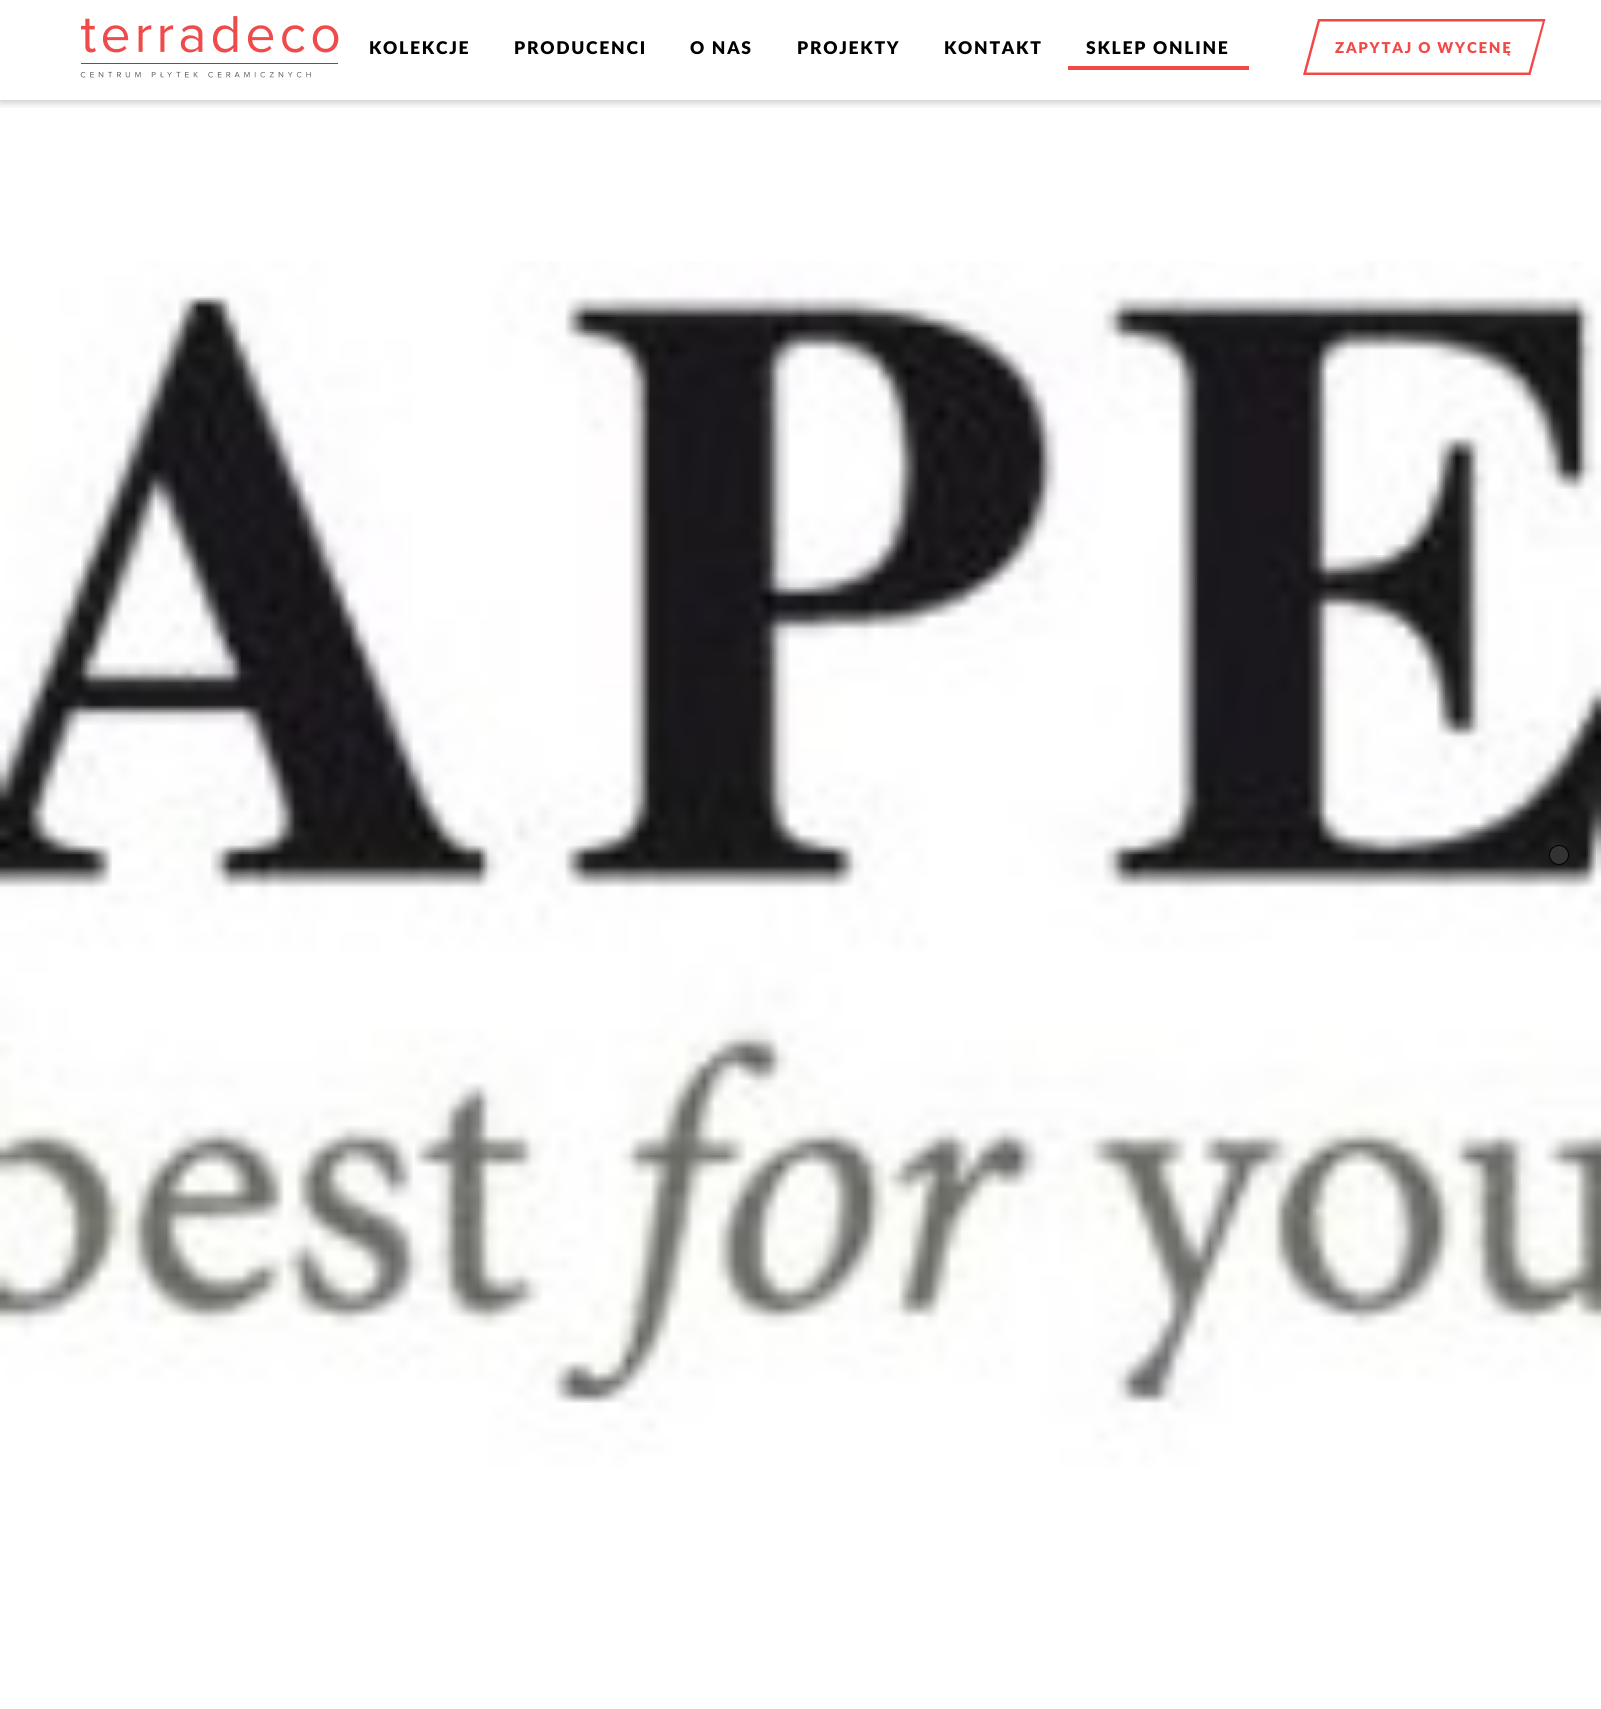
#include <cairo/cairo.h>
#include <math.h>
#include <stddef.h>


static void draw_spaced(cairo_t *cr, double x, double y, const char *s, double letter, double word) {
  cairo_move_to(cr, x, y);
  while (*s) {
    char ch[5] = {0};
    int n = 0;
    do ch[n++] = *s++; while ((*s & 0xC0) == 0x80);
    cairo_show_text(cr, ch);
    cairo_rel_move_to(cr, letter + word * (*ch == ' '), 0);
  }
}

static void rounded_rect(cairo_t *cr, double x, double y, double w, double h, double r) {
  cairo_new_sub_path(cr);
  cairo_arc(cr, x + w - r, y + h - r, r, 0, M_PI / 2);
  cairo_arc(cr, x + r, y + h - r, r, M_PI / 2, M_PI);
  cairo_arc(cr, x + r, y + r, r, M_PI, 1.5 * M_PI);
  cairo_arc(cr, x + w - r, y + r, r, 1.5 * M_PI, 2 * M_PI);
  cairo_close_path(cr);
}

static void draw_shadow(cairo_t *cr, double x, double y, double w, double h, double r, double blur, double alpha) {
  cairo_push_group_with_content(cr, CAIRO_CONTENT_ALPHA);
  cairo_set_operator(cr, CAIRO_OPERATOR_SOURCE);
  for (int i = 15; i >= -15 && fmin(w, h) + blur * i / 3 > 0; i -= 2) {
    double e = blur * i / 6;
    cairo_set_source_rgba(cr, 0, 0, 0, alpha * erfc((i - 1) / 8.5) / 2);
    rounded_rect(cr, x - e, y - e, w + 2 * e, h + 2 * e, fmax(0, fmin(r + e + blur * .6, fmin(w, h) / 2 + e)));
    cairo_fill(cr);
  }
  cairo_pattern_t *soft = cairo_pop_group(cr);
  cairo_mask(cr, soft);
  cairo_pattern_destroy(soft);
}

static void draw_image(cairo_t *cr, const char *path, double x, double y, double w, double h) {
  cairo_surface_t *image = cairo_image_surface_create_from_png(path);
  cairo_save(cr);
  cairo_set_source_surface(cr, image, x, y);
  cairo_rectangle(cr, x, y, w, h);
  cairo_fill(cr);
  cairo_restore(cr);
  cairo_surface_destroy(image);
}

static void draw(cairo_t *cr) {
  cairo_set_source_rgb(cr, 1, 1, 1);
  cairo_paint(cr);
  cairo_save(cr);
  cairo_rectangle(cr, 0, 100, 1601, 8);
  cairo_clip(cr);
  cairo_set_source_rgb(cr, 0, 0, 0);
  draw_shadow(cr, 0, 3, 1601, 100, 0, 4, 0.2);
  cairo_restore(cr);
  draw_image(cr, "images/1.png", 80, 16, 259, 62);
  cairo_set_source_rgb(cr, 242 / 255.0, 73 / 255.0, 70 / 255.0);
  cairo_rectangle(cr, 1068, 66, 181, 4);
  cairo_fill(cr);
  cairo_save(cr);
  cairo_new_path(cr);
  cairo_move_to(cr, 1318, 19);
  cairo_line_to(cr, 1545.5, 19);
  cairo_line_to(cr, 1530.5, 75);
  cairo_line_to(cr, 1303, 75);
  cairo_close_path(cr);
  cairo_clip(cr);
  cairo_new_path(cr);
  cairo_move_to(cr, 1318, 19);
  cairo_line_to(cr, 1546, 19);
  cairo_line_to(cr, 1530.5, 75);
  cairo_line_to(cr, 1303, 75);
  cairo_close_path(cr);
  cairo_set_line_width(cr, 5);
  cairo_stroke(cr);
  cairo_restore(cr);
  draw_image(cr, "images/2.png", 0, 261, 1601, 1438);
  cairo_set_source_rgb(cr, 51 / 255.0, 51 / 255.0, 51 / 255.0);
  cairo_arc(cr, 1559, 855, 9.5, 0, 2 * M_PI);
  cairo_fill_preserve(cr);
  cairo_set_source_rgb(cr, 0, 0, 0);
  cairo_set_line_width(cr, 1);
  cairo_stroke(cr);
  cairo_select_font_face(cr, "Lato Black", CAIRO_FONT_SLANT_NORMAL, CAIRO_FONT_WEIGHT_NORMAL);
  cairo_set_font_size(cr, 17.5);
  draw_spaced(cr, 369, 54, "KOLEKCJE", 1.75, 0);
  draw_spaced(cr, 514, 54, "PRODUCENCI", 1.75, 0);
  draw_spaced(cr, 690, 54, "O NAS", 1.75, 0);
  draw_spaced(cr, 797, 54, "PROJEKTY", 1.75, 0);
  draw_spaced(cr, 944, 54, "KONTAKT", 1.75, 0);
  draw_spaced(cr, 1086, 54, "SKLEP ONLINE", 1.75, 0);
  cairo_set_font_size(cr, 15);
  cairo_set_source_rgb(cr, 242 / 255.0, 73 / 255.0, 70 / 255.0);
  draw_spaced(cr, 1335, 53, "ZAPYTAJ O WYCENĘ", 1.75, 0);
}

int main(void) {
  cairo_surface_t *surface = cairo_image_surface_create(CAIRO_FORMAT_RGB24, 1601, 1709);
  cairo_t *cr = cairo_create(surface);
  cairo_font_options_t *options = cairo_font_options_create();
  cairo_font_options_set_hint_metrics(options, CAIRO_HINT_METRICS_OFF);
  cairo_font_options_set_hint_style(options, CAIRO_HINT_STYLE_NONE);
  cairo_set_font_options(cr, options);
  cairo_set_miter_limit(cr, 4);
  draw(cr);
  cairo_surface_write_to_png(surface, "out.png");
  cairo_font_options_destroy(options);
  cairo_destroy(cr);
  cairo_surface_destroy(surface);
  return 0;
}
